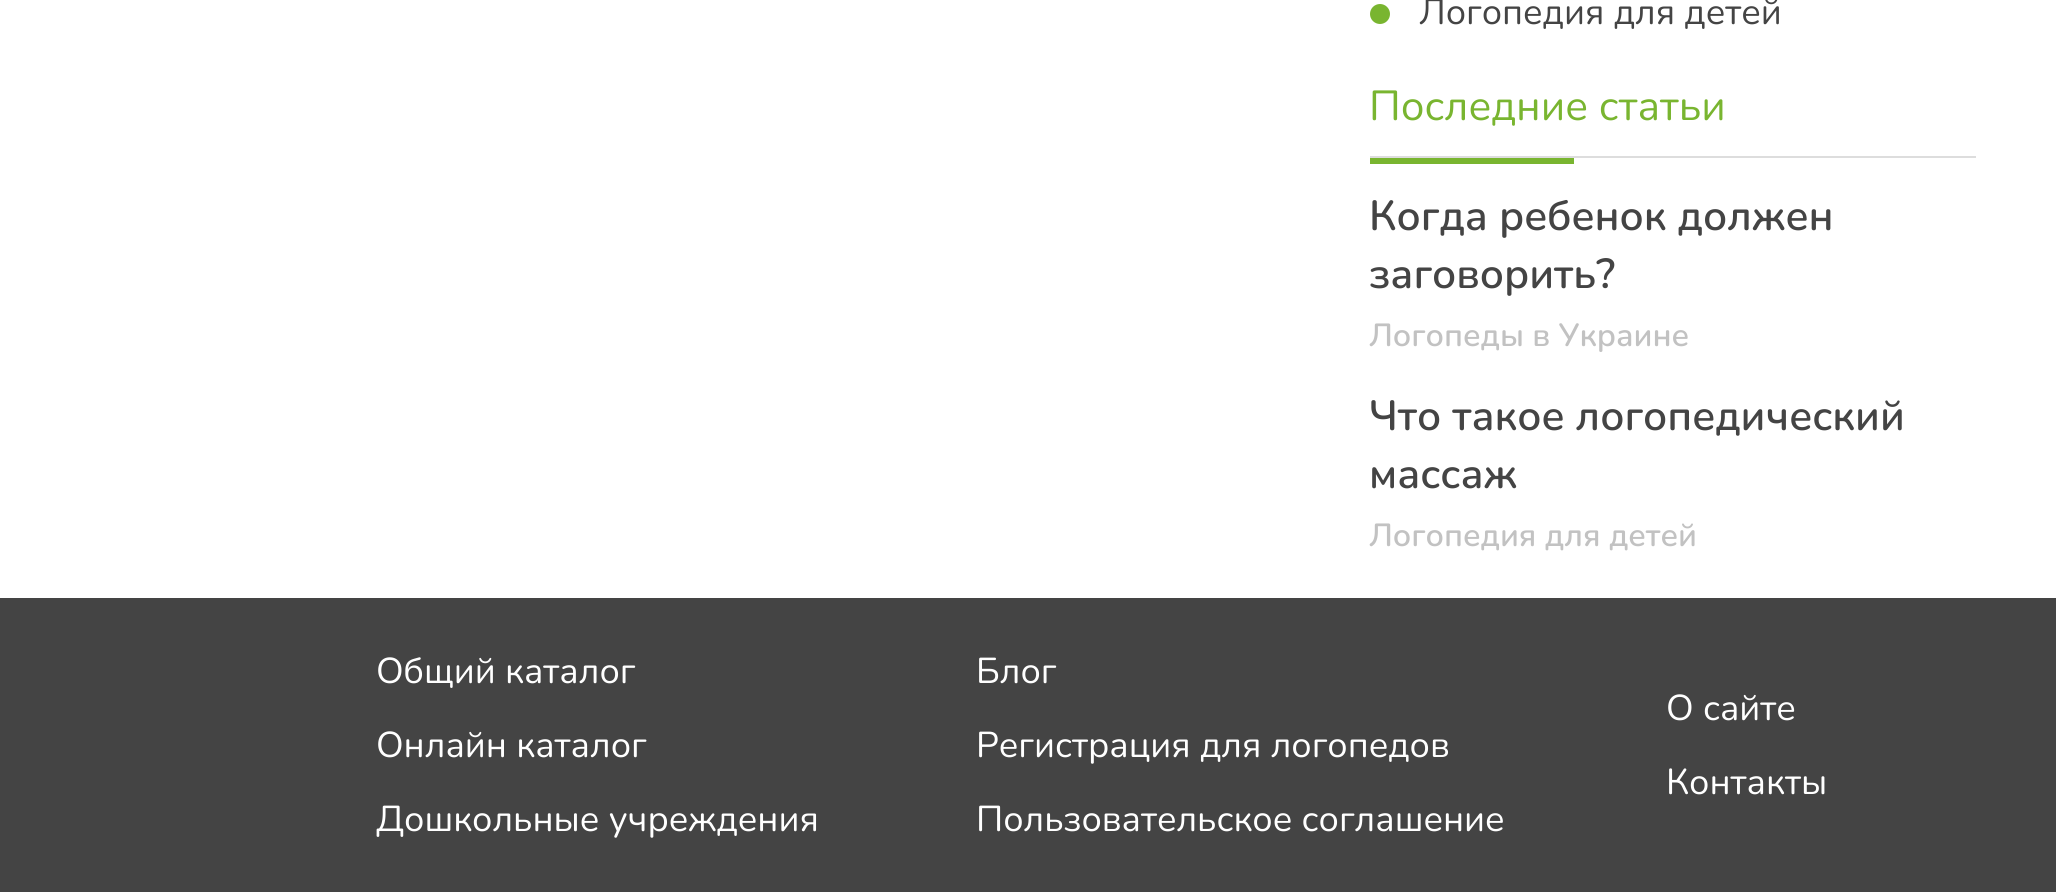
#include <cairo/cairo.h>
#include <math.h>
#include <stddef.h>


static void draw(cairo_t *cr) {
  cairo_set_source_rgb(cr, 1, 1, 1);
  cairo_paint(cr);
  cairo_set_source_rgb(cr, 121 / 255.0, 181 / 255.0, 48 / 255.0);
  cairo_arc(cr, 1380, 14, 10, 0, 2 * M_PI);
  cairo_fill(cr);
  cairo_set_source_rgb(cr, 221 / 255.0, 221 / 255.0, 221 / 255.0);
  cairo_rectangle(cr, 1370, 156, 606, 2);
  cairo_fill(cr);
  cairo_set_source_rgb(cr, 121 / 255.0, 181 / 255.0, 48 / 255.0);
  cairo_rectangle(cr, 1370, 158, 204, 6);
  cairo_fill(cr);
  cairo_set_source_rgb(cr, 68 / 255.0, 68 / 255.0, 68 / 255.0);
  cairo_rectangle(cr, 0, 598, 2056, 294);
  cairo_fill(cr);
  cairo_select_font_face(cr, "Nunito", CAIRO_FONT_SLANT_NORMAL, CAIRO_FONT_WEIGHT_NORMAL);
  cairo_set_font_size(cr, 36);
  cairo_move_to(cr, 1419, 24);
  cairo_show_text(cr, "Логопедия для детей");
  cairo_set_font_size(cr, 42);
  cairo_set_source_rgb(cr, 121 / 255.0, 181 / 255.0, 48 / 255.0);
  cairo_move_to(cr, 1369, 120);
  cairo_show_text(cr, "Последние статьи");
  cairo_select_font_face(cr, "Nunito SemiBold", CAIRO_FONT_SLANT_NORMAL, CAIRO_FONT_WEIGHT_NORMAL);
  cairo_set_source_rgb(cr, 68 / 255.0, 68 / 255.0, 68 / 255.0);
  cairo_move_to(cr, 1369, 230);
  cairo_show_text(cr, "Когда ребенок должен");
  cairo_move_to(cr, 1369, 288);
  cairo_show_text(cr, "заговорить?");
  cairo_set_font_size(cr, 32);
  cairo_set_source_rgb(cr, 194 / 255.0, 194 / 255.0, 194 / 255.0);
  cairo_move_to(cr, 1369, 346);
  cairo_show_text(cr, "Логопеды в Украине");
  cairo_set_font_size(cr, 42);
  cairo_set_source_rgb(cr, 68 / 255.0, 68 / 255.0, 68 / 255.0);
  cairo_move_to(cr, 1369, 430);
  cairo_show_text(cr, "Что такое логопедический");
  cairo_move_to(cr, 1369, 488);
  cairo_show_text(cr, "массаж");
  cairo_set_font_size(cr, 32);
  cairo_set_source_rgb(cr, 194 / 255.0, 194 / 255.0, 194 / 255.0);
  cairo_move_to(cr, 1369, 546);
  cairo_show_text(cr, "Логопедия для детей");
  cairo_select_font_face(cr, "Nunito", CAIRO_FONT_SLANT_NORMAL, CAIRO_FONT_WEIGHT_NORMAL);
  cairo_set_font_size(cr, 36);
  cairo_set_source_rgb(cr, 1, 1, 1);
  cairo_move_to(cr, 376, 683);
  cairo_show_text(cr, "Общий каталог");
  cairo_move_to(cr, 376, 757);
  cairo_show_text(cr, "Онлайн каталог");
  cairo_move_to(cr, 376, 831);
  cairo_show_text(cr, "Дошкольные учреждения");
  cairo_move_to(cr, 976, 683);
  cairo_show_text(cr, "Блог");
  cairo_move_to(cr, 976, 757);
  cairo_show_text(cr, "Регистрация для логопедов");
  cairo_move_to(cr, 976, 831);
  cairo_show_text(cr, "Пользовательское соглашение");
  cairo_move_to(cr, 1666, 720);
  cairo_show_text(cr, "О сайте");
  cairo_move_to(cr, 1666, 794);
  cairo_show_text(cr, "Контакты");
}

int main(void) {
  cairo_surface_t *surface = cairo_image_surface_create(CAIRO_FORMAT_RGB24, 2056, 892);
  cairo_t *cr = cairo_create(surface);
  cairo_font_options_t *options = cairo_font_options_create();
  cairo_font_options_set_hint_metrics(options, CAIRO_HINT_METRICS_OFF);
  cairo_font_options_set_hint_style(options, CAIRO_HINT_STYLE_NONE);
  cairo_set_font_options(cr, options);
  cairo_set_miter_limit(cr, 4);
  draw(cr);
  cairo_surface_write_to_png(surface, "out.png");
  cairo_font_options_destroy(options);
  cairo_destroy(cr);
  cairo_surface_destroy(surface);
  return 0;
}
